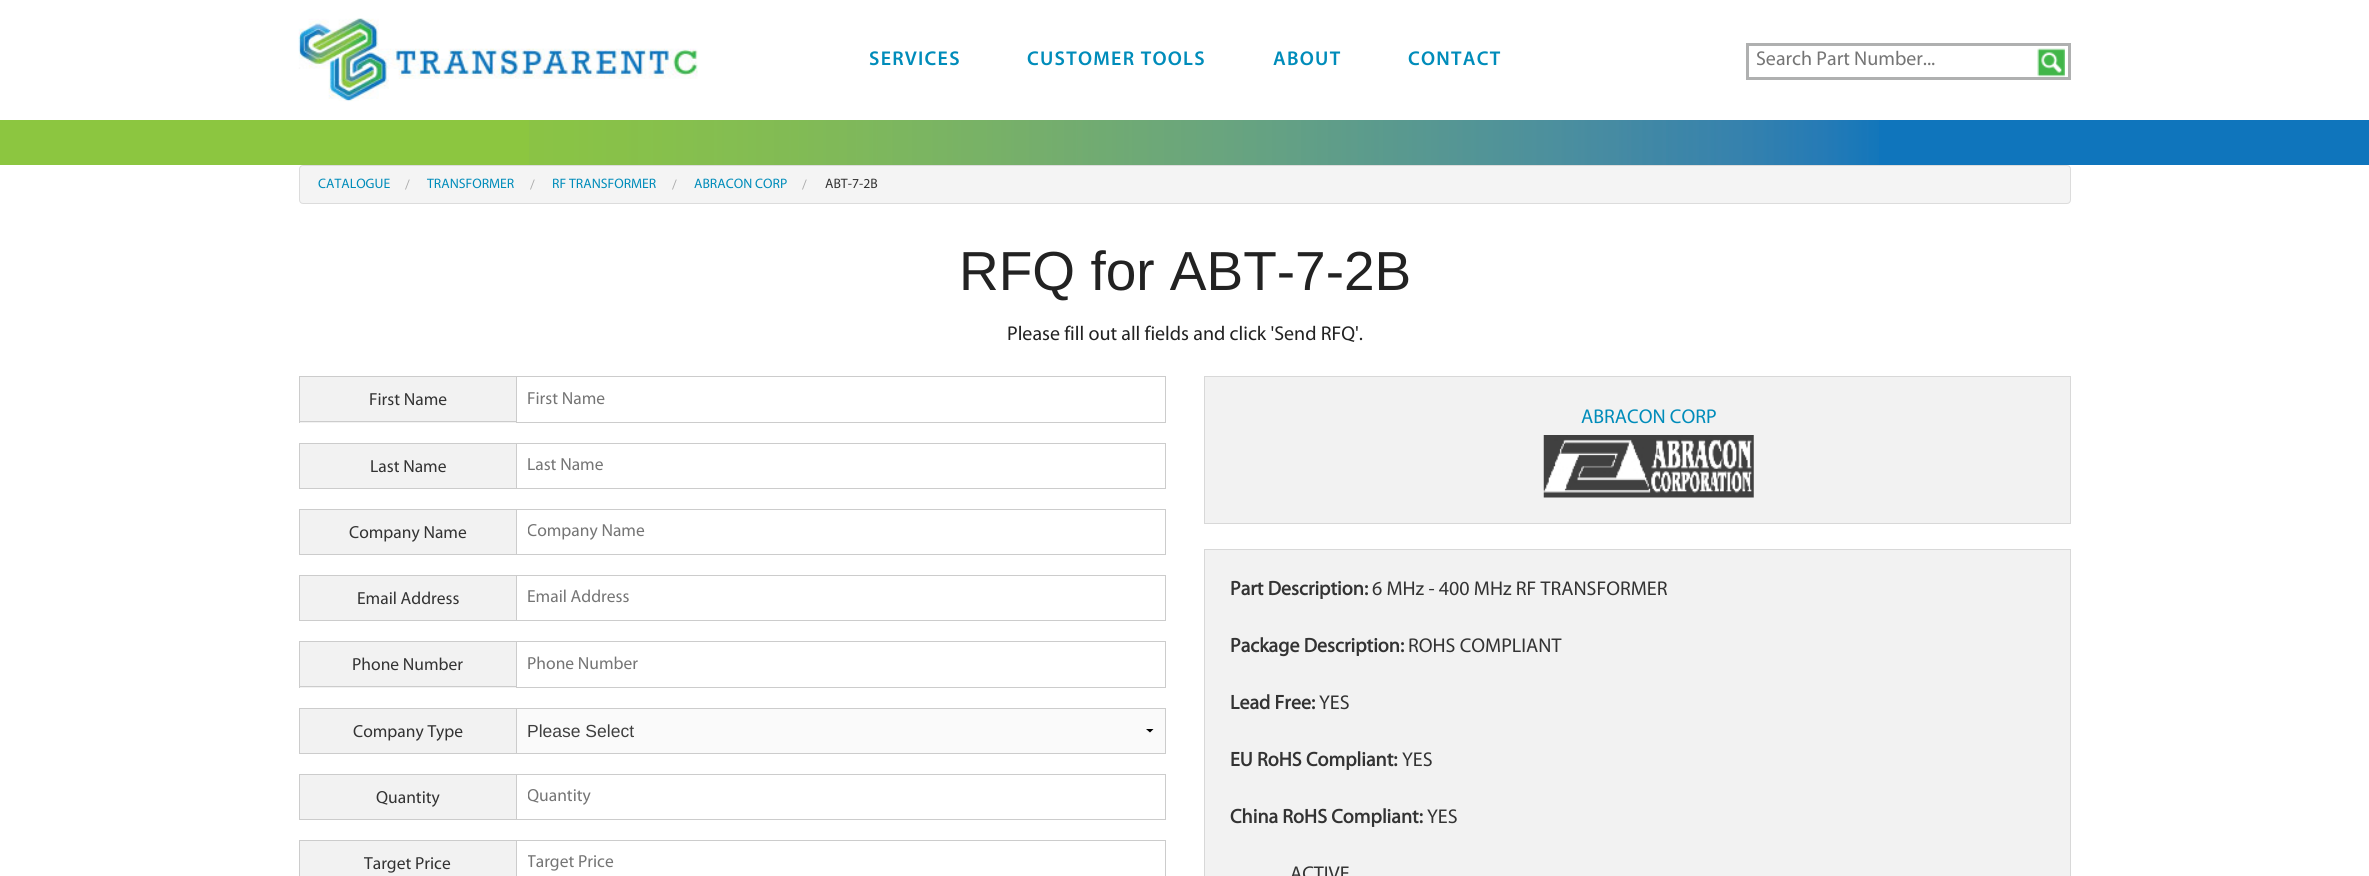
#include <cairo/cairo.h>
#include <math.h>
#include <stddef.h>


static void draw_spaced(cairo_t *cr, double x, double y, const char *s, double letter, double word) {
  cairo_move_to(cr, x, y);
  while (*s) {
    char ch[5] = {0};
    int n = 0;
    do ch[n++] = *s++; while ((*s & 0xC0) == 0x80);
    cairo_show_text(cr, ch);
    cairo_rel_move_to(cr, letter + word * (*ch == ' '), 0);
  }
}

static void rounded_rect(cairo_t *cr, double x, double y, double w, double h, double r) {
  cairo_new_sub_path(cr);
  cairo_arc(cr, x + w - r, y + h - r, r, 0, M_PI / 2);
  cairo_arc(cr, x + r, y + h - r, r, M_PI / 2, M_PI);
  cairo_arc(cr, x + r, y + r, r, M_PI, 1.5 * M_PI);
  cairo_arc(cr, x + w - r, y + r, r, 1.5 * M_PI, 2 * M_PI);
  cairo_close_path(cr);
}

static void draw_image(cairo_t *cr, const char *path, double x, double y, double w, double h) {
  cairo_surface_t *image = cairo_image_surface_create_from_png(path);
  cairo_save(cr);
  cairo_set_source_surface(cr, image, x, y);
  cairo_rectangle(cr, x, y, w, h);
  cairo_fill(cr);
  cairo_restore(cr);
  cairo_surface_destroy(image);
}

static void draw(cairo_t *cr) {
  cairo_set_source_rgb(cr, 1, 1, 1);
  cairo_paint(cr);
  draw_image(cr, "images/1.png", 298, 18, 400, 84);
  cairo_rectangle(cr, 1747.5, 44.5, 322, 34);
  cairo_set_source_rgb(cr, 175 / 255.0, 176 / 255.0, 176 / 255.0);
  cairo_set_line_width(cr, 3);
  cairo_stroke(cr);
  draw_image(cr, "images/2.png", 2037, 48, 28, 29);
  cairo_set_source_rgb(cr, 140 / 255.0, 198 / 255.0, 64 / 255.0);
  cairo_rectangle(cr, 0, 120, 529, 45);
  cairo_fill(cr);
  draw_image(cr, "images/3.png", 529, 120, 656, 45);
  cairo_set_source_rgb(cr, 15 / 255.0, 117 / 255.0, 188 / 255.0);
  cairo_rectangle(cr, 1879, 120, 490, 45);
  cairo_fill(cr);
  draw_image(cr, "images/4.png", 1185, 120, 694, 45);
  cairo_set_source_rgb(cr, 244 / 255.0, 244 / 255.0, 244 / 255.0);
  rounded_rect(cr, 299.5, 165.5, 1771, 38, 3.5);
  cairo_fill_preserve(cr);
  cairo_set_source_rgb(cr, 220 / 255.0, 220 / 255.0, 220 / 255.0);
  cairo_set_line_width(cr, 1);
  cairo_stroke(cr);
  cairo_set_source_rgb(cr, 242 / 255.0, 242 / 255.0, 242 / 255.0);
  cairo_rectangle(cr, 300, 377, 216, 46);
  cairo_fill(cr);
  cairo_set_source_rgb(cr, 204 / 255.0, 204 / 255.0, 204 / 255.0);
  cairo_rectangle(cr, 299, 376, 217, 1);
  cairo_fill(cr);
  cairo_rectangle(cr, 299, 421, 217, 1);
  cairo_fill(cr);
  cairo_rectangle(cr, 299, 376, 1, 47);
  cairo_fill(cr);
  cairo_rectangle(cr, 516.5, 376.5, 649, 46);
  cairo_stroke(cr);
  cairo_set_source_rgb(cr, 242 / 255.0, 242 / 255.0, 242 / 255.0);
  cairo_rectangle(cr, 300, 444, 216, 44);
  cairo_fill(cr);
  cairo_set_source_rgb(cr, 204 / 255.0, 204 / 255.0, 204 / 255.0);
  cairo_rectangle(cr, 299, 443, 217, 1);
  cairo_fill(cr);
  cairo_rectangle(cr, 299, 488, 217, 1);
  cairo_fill(cr);
  cairo_rectangle(cr, 299, 443, 1, 46);
  cairo_fill(cr);
  cairo_rectangle(cr, 516.5, 443.5, 649, 45);
  cairo_stroke(cr);
  cairo_set_source_rgb(cr, 242 / 255.0, 242 / 255.0, 242 / 255.0);
  cairo_rectangle(cr, 300, 510, 216, 44);
  cairo_fill(cr);
  cairo_set_source_rgb(cr, 204 / 255.0, 204 / 255.0, 204 / 255.0);
  cairo_rectangle(cr, 299, 509, 217, 1);
  cairo_fill(cr);
  cairo_rectangle(cr, 299, 554, 217, 1);
  cairo_fill(cr);
  cairo_rectangle(cr, 299, 509, 1, 46);
  cairo_fill(cr);
  cairo_rectangle(cr, 516.5, 509.5, 649, 45);
  cairo_stroke(cr);
  cairo_set_source_rgb(cr, 242 / 255.0, 242 / 255.0, 242 / 255.0);
  cairo_rectangle(cr, 300, 576, 216, 44);
  cairo_fill(cr);
  cairo_set_source_rgb(cr, 204 / 255.0, 204 / 255.0, 204 / 255.0);
  cairo_rectangle(cr, 299, 575, 217, 1);
  cairo_fill(cr);
  cairo_rectangle(cr, 299, 620, 217, 1);
  cairo_fill(cr);
  cairo_rectangle(cr, 299, 575, 1, 46);
  cairo_fill(cr);
  cairo_rectangle(cr, 516.5, 575.5, 649, 45);
  cairo_stroke(cr);
  cairo_set_source_rgb(cr, 242 / 255.0, 242 / 255.0, 242 / 255.0);
  cairo_rectangle(cr, 300, 642, 216, 46);
  cairo_fill(cr);
  cairo_set_source_rgb(cr, 204 / 255.0, 204 / 255.0, 204 / 255.0);
  cairo_rectangle(cr, 299, 641, 217, 1);
  cairo_fill(cr);
  cairo_rectangle(cr, 299, 686, 217, 1);
  cairo_fill(cr);
  cairo_rectangle(cr, 299, 641, 1, 47);
  cairo_fill(cr);
  cairo_rectangle(cr, 516.5, 641.5, 649, 46);
  cairo_stroke(cr);
  cairo_set_source_rgb(cr, 242 / 255.0, 242 / 255.0, 242 / 255.0);
  cairo_rectangle(cr, 300, 709, 216, 44);
  cairo_fill(cr);
  cairo_set_source_rgb(cr, 204 / 255.0, 204 / 255.0, 204 / 255.0);
  cairo_rectangle(cr, 299, 708, 217, 1);
  cairo_fill(cr);
  cairo_rectangle(cr, 299, 753, 217, 1);
  cairo_fill(cr);
  cairo_rectangle(cr, 299, 708, 1, 46);
  cairo_fill(cr);
  cairo_set_source_rgb(cr, 250 / 255.0, 250 / 255.0, 250 / 255.0);
  cairo_rectangle(cr, 517, 709, 648, 44);
  cairo_fill(cr);
  cairo_set_source_rgb(cr, 0, 0, 0);
  cairo_new_path(cr);
  cairo_move_to(cr, 1153.5, 729);
  cairo_line_to(cr, 1150, 732.5);
  cairo_line_to(cr, 1146, 729);
  cairo_close_path(cr);
  cairo_fill(cr);
  cairo_rectangle(cr, 516.5, 708.5, 649, 45);
  cairo_set_source_rgb(cr, 204 / 255.0, 204 / 255.0, 204 / 255.0);
  cairo_stroke(cr);
  cairo_set_source_rgb(cr, 242 / 255.0, 242 / 255.0, 242 / 255.0);
  cairo_rectangle(cr, 300, 775, 216, 44);
  cairo_fill(cr);
  cairo_set_source_rgb(cr, 204 / 255.0, 204 / 255.0, 204 / 255.0);
  cairo_rectangle(cr, 299, 774, 217, 1);
  cairo_fill(cr);
  cairo_rectangle(cr, 299, 819, 217, 1);
  cairo_fill(cr);
  cairo_rectangle(cr, 299, 774, 1, 46);
  cairo_fill(cr);
  cairo_rectangle(cr, 516.5, 774.5, 649, 45);
  cairo_stroke(cr);
  cairo_set_source_rgb(cr, 242 / 255.0, 242 / 255.0, 242 / 255.0);
  cairo_rectangle(cr, 300, 841, 216, 35);
  cairo_fill(cr);
  cairo_set_source_rgb(cr, 204 / 255.0, 204 / 255.0, 204 / 255.0);
  cairo_rectangle(cr, 299, 840, 217, 1);
  cairo_fill(cr);
  cairo_rectangle(cr, 299, 840, 1, 36);
  cairo_fill(cr);
  cairo_rectangle(cr, 516.5, 840.5, 649, 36);
  cairo_stroke(cr);
  cairo_set_source_rgb(cr, 242 / 255.0, 242 / 255.0, 242 / 255.0);
  cairo_rectangle(cr, 1204.5, 376.5, 866, 147);
  cairo_fill_preserve(cr);
  cairo_set_source_rgb(cr, 216 / 255.0, 216 / 255.0, 216 / 255.0);
  cairo_stroke(cr);
  draw_image(cr, "images/5.png", 1543, 435, 211, 63);
  cairo_set_source_rgb(cr, 242 / 255.0, 242 / 255.0, 242 / 255.0);
  cairo_rectangle(cr, 1204.5, 549.5, 866, 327);
  cairo_fill_preserve(cr);
  cairo_set_source_rgb(cr, 216 / 255.0, 216 / 255.0, 216 / 255.0);
  cairo_stroke(cr);
  cairo_select_font_face(cr, "Myriad SemiBold", CAIRO_FONT_SLANT_NORMAL, CAIRO_FONT_WEIGHT_NORMAL);
  cairo_set_font_size(cr, 20);
  cairo_set_source_rgb(cr, 0, 140 / 255.0, 186 / 255.0);
  draw_spaced(cr, 869, 65, "SERVICES", 1.25, 0);
  draw_spaced(cr, 1027, 65, "CUSTOMER TOOLS", 1.25, 0);
  draw_spaced(cr, 1273, 65, "ABOUT", 1.25, 0);
  draw_spaced(cr, 1408, 65, "CONTACT", 1.25, 0);
  cairo_select_font_face(cr, "Myriad", CAIRO_FONT_SLANT_NORMAL, CAIRO_FONT_WEIGHT_NORMAL);
  cairo_set_source_rgb(cr, 117 / 255.0, 117 / 255.0, 117 / 255.0);
  cairo_move_to(cr, 1756, 65);
  cairo_show_text(cr, "Search Part Number...");
  cairo_set_font_size(cr, 13.75);
  cairo_set_source_rgb(cr, 0, 140 / 255.0, 186 / 255.0);
  cairo_move_to(cr, 318, 188);
  cairo_show_text(cr, "CATALOGUE");
  cairo_set_source_rgb(cr, 170 / 255.0, 170 / 255.0, 170 / 255.0);
  cairo_move_to(cr, 405, 189);
  cairo_show_text(cr, "/");
  cairo_set_source_rgb(cr, 0, 140 / 255.0, 186 / 255.0);
  cairo_move_to(cr, 427, 188);
  cairo_show_text(cr, "TRANSFORMER");
  cairo_set_source_rgb(cr, 170 / 255.0, 170 / 255.0, 170 / 255.0);
  cairo_move_to(cr, 530, 189);
  cairo_show_text(cr, "/");
  cairo_set_source_rgb(cr, 0, 140 / 255.0, 186 / 255.0);
  cairo_move_to(cr, 552, 188);
  cairo_show_text(cr, "RF TRANSFORMER");
  cairo_set_source_rgb(cr, 170 / 255.0, 170 / 255.0, 170 / 255.0);
  cairo_move_to(cr, 672, 189);
  cairo_show_text(cr, "/");
  cairo_set_source_rgb(cr, 0, 140 / 255.0, 186 / 255.0);
  cairo_move_to(cr, 694, 188);
  cairo_show_text(cr, "ABRACON CORP");
  cairo_set_source_rgb(cr, 170 / 255.0, 170 / 255.0, 170 / 255.0);
  cairo_move_to(cr, 802, 189);
  cairo_show_text(cr, "/");
  cairo_set_source_rgb(cr, 51 / 255.0, 51 / 255.0, 51 / 255.0);
  cairo_move_to(cr, 825, 188);
  cairo_show_text(cr, "ABT-7-2B");
  cairo_select_font_face(cr, "Liberation Sans", CAIRO_FONT_SLANT_NORMAL, CAIRO_FONT_WEIGHT_NORMAL);
  cairo_set_font_size(cr, 55);
  cairo_set_source_rgb(cr, 34 / 255.0, 34 / 255.0, 34 / 255.0);
  cairo_move_to(cr, 959, 290);
  cairo_show_text(cr, "RFQ for ABT-7-2B");
  cairo_select_font_face(cr, "Myriad", CAIRO_FONT_SLANT_NORMAL, CAIRO_FONT_WEIGHT_NORMAL);
  cairo_set_font_size(cr, 20);
  cairo_move_to(cr, 1007, 340);
  cairo_show_text(cr, "Please fill out all fields and click 'Send RFQ'.");
  cairo_set_font_size(cr, 17.5);
  cairo_set_source_rgb(cr, 51 / 255.0, 51 / 255.0, 51 / 255.0);
  cairo_move_to(cr, 369, 405);
  cairo_show_text(cr, "First Name");
  cairo_set_source_rgb(cr, 117 / 255.0, 117 / 255.0, 117 / 255.0);
  cairo_move_to(cr, 527, 404);
  cairo_show_text(cr, "First Name");
  cairo_set_source_rgb(cr, 51 / 255.0, 51 / 255.0, 51 / 255.0);
  cairo_move_to(cr, 370, 472);
  cairo_show_text(cr, "Last Name");
  cairo_set_source_rgb(cr, 117 / 255.0, 117 / 255.0, 117 / 255.0);
  cairo_move_to(cr, 527, 470);
  cairo_show_text(cr, "Last Name");
  cairo_set_source_rgb(cr, 51 / 255.0, 51 / 255.0, 51 / 255.0);
  cairo_move_to(cr, 349, 538);
  cairo_show_text(cr, "Company Name");
  cairo_save(cr);
  cairo_rectangle(cr, 528, 521, 627, 23);
  cairo_clip(cr);
  cairo_set_source_rgb(cr, 117 / 255.0, 117 / 255.0, 117 / 255.0);
  cairo_move_to(cr, 527, 536);
  cairo_show_text(cr, "Company Name");
  cairo_restore(cr);
  cairo_move_to(cr, 357, 604);
  cairo_show_text(cr, "Email Address");
  cairo_set_source_rgb(cr, 117 / 255.0, 117 / 255.0, 117 / 255.0);
  cairo_move_to(cr, 527, 602);
  cairo_show_text(cr, "Email Address");
  cairo_set_source_rgb(cr, 51 / 255.0, 51 / 255.0, 51 / 255.0);
  cairo_move_to(cr, 352, 670);
  cairo_show_text(cr, "Phone Number");
  cairo_set_source_rgb(cr, 117 / 255.0, 117 / 255.0, 117 / 255.0);
  cairo_move_to(cr, 527, 669);
  cairo_show_text(cr, "Phone Number");
  cairo_set_source_rgb(cr, 51 / 255.0, 51 / 255.0, 51 / 255.0);
  cairo_move_to(cr, 353, 737);
  cairo_show_text(cr, "Company Type");
  cairo_select_font_face(cr, "Liberation Sans", CAIRO_FONT_SLANT_NORMAL, CAIRO_FONT_WEIGHT_NORMAL);
  cairo_set_source_rgb(cr, 63 / 255.0, 63 / 255.0, 63 / 255.0);
  cairo_move_to(cr, 527, 737);
  cairo_show_text(cr, "Please Select");
  cairo_select_font_face(cr, "Myriad", CAIRO_FONT_SLANT_NORMAL, CAIRO_FONT_WEIGHT_NORMAL);
  cairo_set_source_rgb(cr, 51 / 255.0, 51 / 255.0, 51 / 255.0);
  cairo_move_to(cr, 376, 803);
  cairo_show_text(cr, "Quantity");
  cairo_save(cr);
  cairo_rectangle(cr, 528, 786, 627, 23);
  cairo_clip(cr);
  cairo_set_source_rgb(cr, 117 / 255.0, 117 / 255.0, 117 / 255.0);
  cairo_move_to(cr, 527, 801);
  cairo_show_text(cr, "Quantity");
  cairo_restore(cr);
  cairo_move_to(cr, 364, 869);
  cairo_show_text(cr, "Target Price");
  cairo_save(cr);
  cairo_rectangle(cr, 528, 853, 627, 22);
  cairo_clip(cr);
  cairo_set_source_rgb(cr, 117 / 255.0, 117 / 255.0, 117 / 255.0);
  cairo_move_to(cr, 527, 867);
  cairo_show_text(cr, "Target Price");
  cairo_restore(cr);
  cairo_set_font_size(cr, 20);
  cairo_set_source_rgb(cr, 0, 140 / 255.0, 186 / 255.0);
  cairo_move_to(cr, 1581, 423);
  cairo_show_text(cr, "ABRACON CORP");
  cairo_select_font_face(cr, "Myriad", CAIRO_FONT_SLANT_NORMAL, CAIRO_FONT_WEIGHT_BOLD);
  cairo_set_source_rgb(cr, 51 / 255.0, 51 / 255.0, 51 / 255.0);
  cairo_move_to(cr, 1230, 595);
  cairo_show_text(cr, "Part Description:");
  cairo_select_font_face(cr, "Myriad", CAIRO_FONT_SLANT_NORMAL, CAIRO_FONT_WEIGHT_NORMAL);
  cairo_move_to(cr, 1372, 595);
  cairo_show_text(cr, "6 MHz - 400 MHz RF TRANSFORMER");
  cairo_select_font_face(cr, "Myriad", CAIRO_FONT_SLANT_NORMAL, CAIRO_FONT_WEIGHT_BOLD);
  cairo_move_to(cr, 1230, 652);
  cairo_show_text(cr, "Package Description:");
  cairo_select_font_face(cr, "Myriad", CAIRO_FONT_SLANT_NORMAL, CAIRO_FONT_WEIGHT_NORMAL);
  cairo_move_to(cr, 1408, 652);
  cairo_show_text(cr, "ROHS COMPLIANT");
  cairo_select_font_face(cr, "Myriad", CAIRO_FONT_SLANT_NORMAL, CAIRO_FONT_WEIGHT_BOLD);
  cairo_move_to(cr, 1230, 709);
  cairo_show_text(cr, "Lead Free:");
  cairo_select_font_face(cr, "Myriad", CAIRO_FONT_SLANT_NORMAL, CAIRO_FONT_WEIGHT_NORMAL);
  cairo_move_to(cr, 1319, 709);
  cairo_show_text(cr, "YES");
  cairo_select_font_face(cr, "Myriad", CAIRO_FONT_SLANT_NORMAL, CAIRO_FONT_WEIGHT_BOLD);
  cairo_move_to(cr, 1230, 766);
  cairo_show_text(cr, "EU RoHS Compliant:");
  cairo_select_font_face(cr, "Myriad", CAIRO_FONT_SLANT_NORMAL, CAIRO_FONT_WEIGHT_NORMAL);
  cairo_move_to(cr, 1402, 766);
  cairo_show_text(cr, "YES");
  cairo_select_font_face(cr, "Myriad", CAIRO_FONT_SLANT_NORMAL, CAIRO_FONT_WEIGHT_BOLD);
  cairo_move_to(cr, 1230, 823);
  cairo_show_text(cr, "China RoHS Compliant:");
  cairo_select_font_face(cr, "Myriad", CAIRO_FONT_SLANT_NORMAL, CAIRO_FONT_WEIGHT_NORMAL);
  cairo_move_to(cr, 1427, 823);
  cairo_show_text(cr, "YES");
  cairo_move_to(cr, 1290, 880);
  cairo_show_text(cr, "ACTIVE");
}

int main(void) {
  cairo_surface_t *surface = cairo_image_surface_create(CAIRO_FORMAT_RGB24, 2369, 876);
  cairo_t *cr = cairo_create(surface);
  cairo_font_options_t *options = cairo_font_options_create();
  cairo_font_options_set_hint_metrics(options, CAIRO_HINT_METRICS_OFF);
  cairo_font_options_set_hint_style(options, CAIRO_HINT_STYLE_NONE);
  cairo_set_font_options(cr, options);
  cairo_set_miter_limit(cr, 4);
  draw(cr);
  cairo_surface_write_to_png(surface, "out.png");
  cairo_font_options_destroy(options);
  cairo_destroy(cr);
  cairo_surface_destroy(surface);
  return 0;
}
